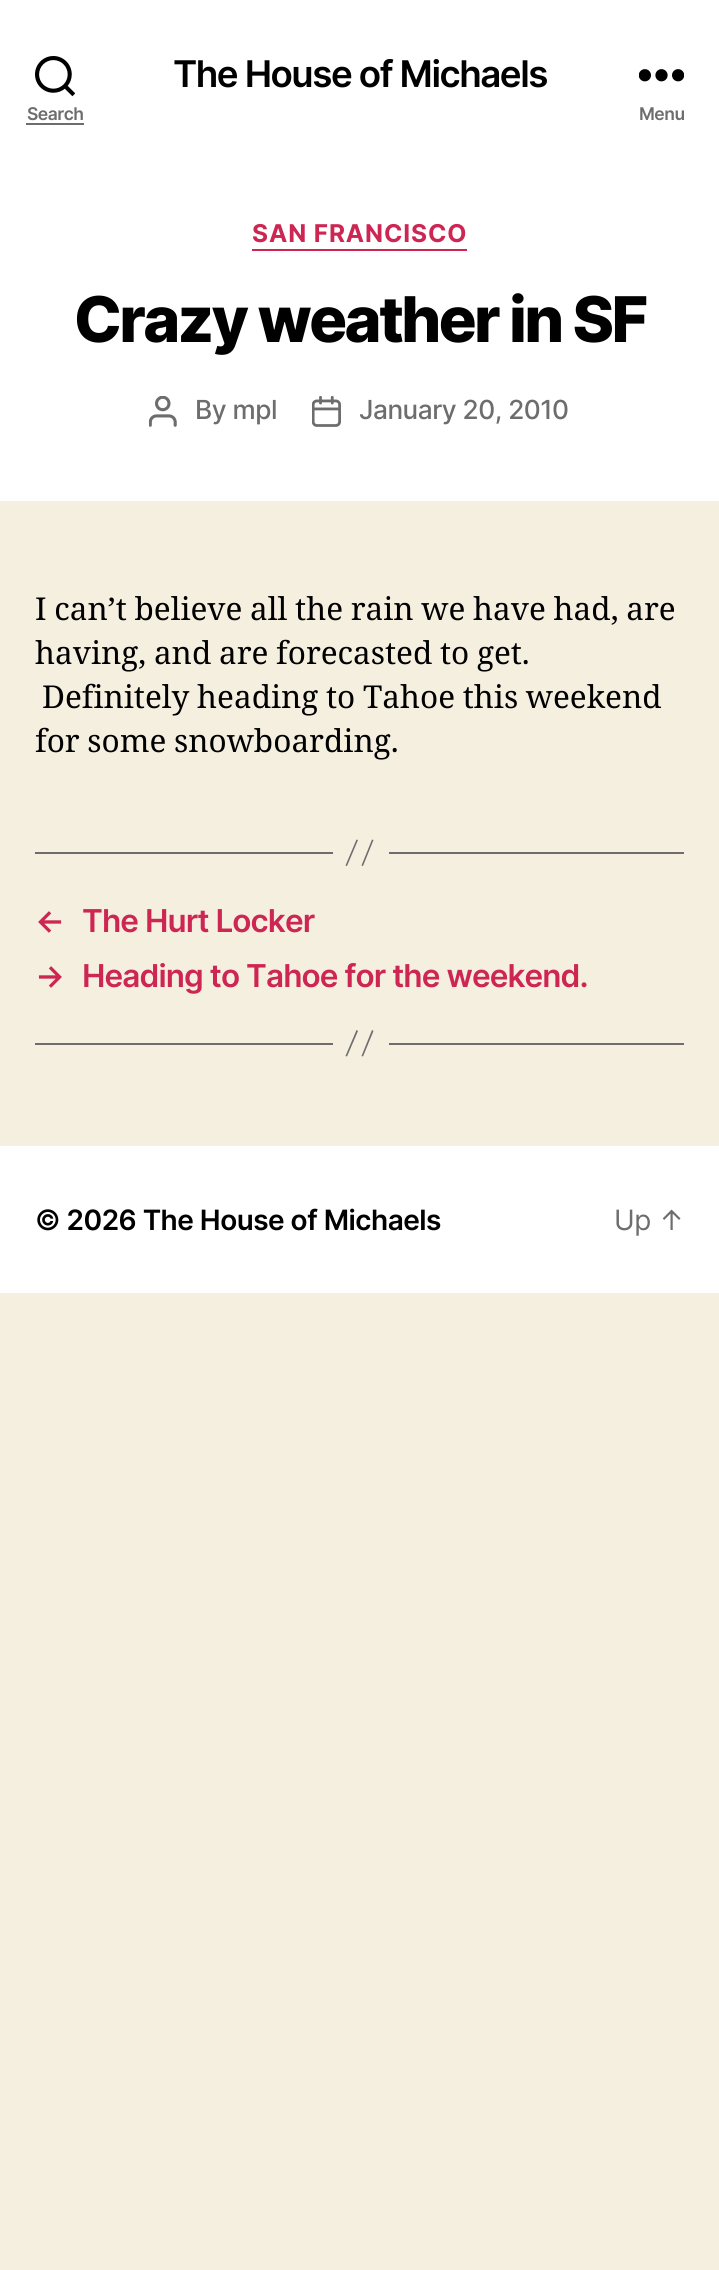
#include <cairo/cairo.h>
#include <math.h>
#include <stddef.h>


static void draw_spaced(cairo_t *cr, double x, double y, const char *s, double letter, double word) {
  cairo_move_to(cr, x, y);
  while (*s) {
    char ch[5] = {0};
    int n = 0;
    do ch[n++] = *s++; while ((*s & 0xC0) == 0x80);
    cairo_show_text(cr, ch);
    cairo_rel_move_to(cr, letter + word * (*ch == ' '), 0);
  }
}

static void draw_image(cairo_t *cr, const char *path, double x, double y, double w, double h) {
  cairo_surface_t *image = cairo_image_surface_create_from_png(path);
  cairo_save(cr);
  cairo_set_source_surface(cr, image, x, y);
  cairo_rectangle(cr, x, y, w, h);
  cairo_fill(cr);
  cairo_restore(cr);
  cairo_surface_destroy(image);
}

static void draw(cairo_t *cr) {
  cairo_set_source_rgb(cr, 245 / 255.0, 239 / 255.0, 224 / 255.0);
  cairo_paint(cr);
  cairo_set_source_rgb(cr, 1, 1, 1);
  cairo_rectangle(cr, 0, 0, 719, 501);
  cairo_fill(cr);
  draw_image(cr, "images/1.png", 35, 56, 40, 41);
  cairo_set_source_rgb(cr, 109 / 255.0, 109 / 255.0, 109 / 255.0);
  cairo_rectangle(cr, 26, 123, 58, 2);
  cairo_fill(cr);
  draw_image(cr, "images/2.png", 639, 69, 45, 13);
  cairo_set_source_rgb(cr, 205 / 255.0, 38 / 255.0, 83 / 255.0);
  cairo_rectangle(cr, 252, 249, 215, 2);
  cairo_fill(cr);
  draw_image(cr, "images/3.png", 149, 396, 28, 31);
  draw_image(cr, "images/4.png", 312, 396, 29, 31);
  cairo_set_source_rgb(cr, 109 / 255.0, 109 / 255.0, 109 / 255.0);
  cairo_rectangle(cr, 389, 852, 295, 2);
  cairo_fill(cr);
  cairo_rectangle(cr, 35, 852, 298, 2);
  cairo_fill(cr);
  cairo_new_path(cr);
  cairo_move_to(cr, 356.5, 839.5);
  cairo_line_to(cr, 358, 840);
  cairo_line_to(cr, 347, 866);
  cairo_line_to(cr, 345.5, 865.5);
  cairo_close_path(cr);
  cairo_move_to(cr, 372, 839.5);
  cairo_line_to(cr, 373.5, 840);
  cairo_line_to(cr, 363, 866);
  cairo_line_to(cr, 361.5, 865.5);
  cairo_close_path(cr);
  cairo_fill(cr);
  cairo_rectangle(cr, 389, 1043, 295, 2);
  cairo_fill(cr);
  cairo_rectangle(cr, 35, 1043, 298, 2);
  cairo_fill(cr);
  cairo_new_path(cr);
  cairo_move_to(cr, 356.5, 1030);
  cairo_line_to(cr, 358, 1031);
  cairo_line_to(cr, 347, 1056.5);
  cairo_line_to(cr, 345.5, 1056);
  cairo_close_path(cr);
  cairo_move_to(cr, 372, 1030);
  cairo_line_to(cr, 373.5, 1031);
  cairo_line_to(cr, 363, 1056.5);
  cairo_line_to(cr, 361.5, 1056);
  cairo_close_path(cr);
  cairo_fill(cr);
  cairo_set_source_rgb(cr, 1, 1, 1);
  cairo_rectangle(cr, 0, 1146, 719, 147);
  cairo_fill(cr);
  cairo_select_font_face(cr, "Inter SemiBold", CAIRO_FONT_SLANT_NORMAL, CAIRO_FONT_WEIGHT_NORMAL);
  cairo_set_font_size(cr, 36.75);
  cairo_set_source_rgb(cr, 0, 0, 0);
  draw_spaced(cr, 173, 87, "The House of Michaels", -1.5, 0);
  cairo_set_font_size(cr, 17.5);
  cairo_set_source_rgb(cr, 109 / 255.0, 109 / 255.0, 109 / 255.0);
  draw_spaced(cr, 27, 120, "Search", -0.5, 0);
  draw_spaced(cr, 639, 120, "Menu", -0.5, 0);
  cairo_select_font_face(cr, "Inter", CAIRO_FONT_SLANT_NORMAL, CAIRO_FONT_WEIGHT_BOLD);
  cairo_set_font_size(cr, 24.5);
  cairo_set_source_rgb(cr, 205 / 255.0, 38 / 255.0, 83 / 255.0);
  draw_spaced(cr, 252, 242, "SAN FRANCISCO", 0.9, 0);
  cairo_select_font_face(cr, "Inter ExtraBold", CAIRO_FONT_SLANT_NORMAL, CAIRO_FONT_WEIGHT_NORMAL);
  cairo_set_font_size(cr, 63);
  cairo_set_source_rgb(cr, 0, 0, 0);
  draw_spaced(cr, 74, 342, "Crazy weather in SF", -2.6, 0);
  cairo_select_font_face(cr, "Inter Medium", CAIRO_FONT_SLANT_NORMAL, CAIRO_FONT_WEIGHT_NORMAL);
  cairo_set_font_size(cr, 26.25);
  cairo_set_source_rgb(cr, 109 / 255.0, 109 / 255.0, 109 / 255.0);
  draw_spaced(cr, 195, 419, "By mpl", -0.5, 0);
  draw_spaced(cr, 359, 419, "January 20, 2010", -0.5, 0);
  cairo_select_font_face(cr, "Noto Serif", CAIRO_FONT_SLANT_NORMAL, CAIRO_FONT_WEIGHT_NORMAL);
  cairo_set_font_size(cr, 31.5);
  cairo_set_source_rgb(cr, 0, 0, 0);
  draw_spaced(cr, 35, 620, "I can’t believe all the rain we have had, are", 0, -0.5);
  draw_spaced(cr, 35, 664, "having, and are forecasted to get.", 0, -0.5);
  draw_spaced(cr, 42, 708, "Definitely heading to Tahoe this weekend", 0, -0.5);
  draw_spaced(cr, 35, 752, "for some snowboarding.", 0, -0.5);
  cairo_select_font_face(cr, "Inter SemiBold", CAIRO_FONT_SLANT_NORMAL, CAIRO_FONT_WEIGHT_NORMAL);
  cairo_set_source_rgb(cr, 205 / 255.0, 38 / 255.0, 83 / 255.0);
  draw_spaced(cr, 35, 932, "←", -0.9, 0);
  draw_spaced(cr, 82, 932, "The Hurt Locker", -0.9, 0);
  draw_spaced(cr, 35, 987, "→", -0.9, 0);
  draw_spaced(cr, 82, 987, "Heading to Tahoe for the weekend.", -0.9, 0);
  cairo_set_font_size(cr, 28);
  cairo_set_source_rgb(cr, 0, 0, 0);
  draw_spaced(cr, 35, 1230, "© 2026 The House of Michaels", -0.5, 0);
  cairo_select_font_face(cr, "Inter", CAIRO_FONT_SLANT_NORMAL, CAIRO_FONT_WEIGHT_NORMAL);
  cairo_set_source_rgb(cr, 109 / 255.0, 109 / 255.0, 109 / 255.0);
  draw_spaced(cr, 614, 1230, "Up ↑", -0.5, 0);
}

int main(void) {
  cairo_surface_t *surface = cairo_image_surface_create(CAIRO_FORMAT_RGB24, 719, 2270);
  cairo_t *cr = cairo_create(surface);
  cairo_font_options_t *options = cairo_font_options_create();
  cairo_font_options_set_hint_metrics(options, CAIRO_HINT_METRICS_OFF);
  cairo_font_options_set_hint_style(options, CAIRO_HINT_STYLE_NONE);
  cairo_set_font_options(cr, options);
  cairo_set_miter_limit(cr, 4);
  draw(cr);
  cairo_surface_write_to_png(surface, "out.png");
  cairo_font_options_destroy(options);
  cairo_destroy(cr);
  cairo_surface_destroy(surface);
  return 0;
}
